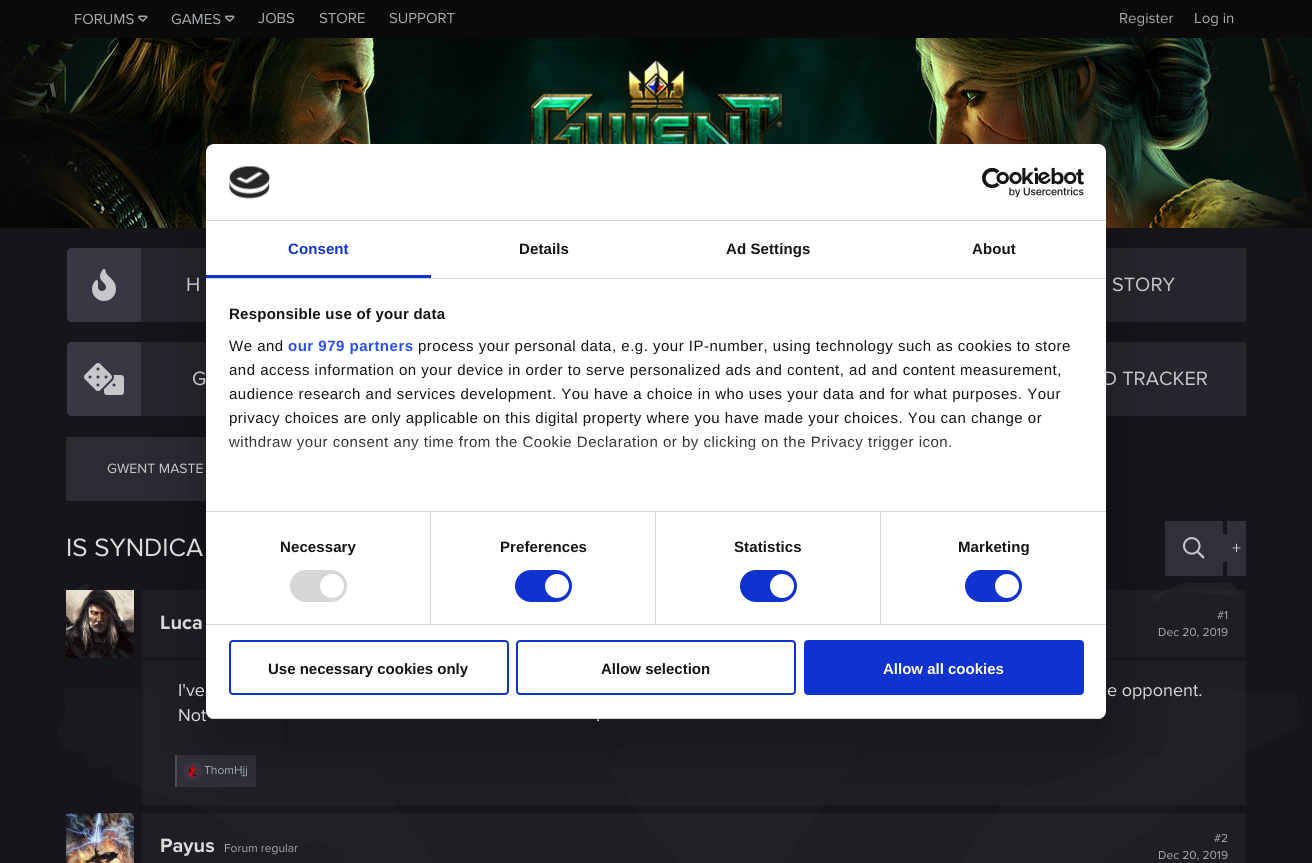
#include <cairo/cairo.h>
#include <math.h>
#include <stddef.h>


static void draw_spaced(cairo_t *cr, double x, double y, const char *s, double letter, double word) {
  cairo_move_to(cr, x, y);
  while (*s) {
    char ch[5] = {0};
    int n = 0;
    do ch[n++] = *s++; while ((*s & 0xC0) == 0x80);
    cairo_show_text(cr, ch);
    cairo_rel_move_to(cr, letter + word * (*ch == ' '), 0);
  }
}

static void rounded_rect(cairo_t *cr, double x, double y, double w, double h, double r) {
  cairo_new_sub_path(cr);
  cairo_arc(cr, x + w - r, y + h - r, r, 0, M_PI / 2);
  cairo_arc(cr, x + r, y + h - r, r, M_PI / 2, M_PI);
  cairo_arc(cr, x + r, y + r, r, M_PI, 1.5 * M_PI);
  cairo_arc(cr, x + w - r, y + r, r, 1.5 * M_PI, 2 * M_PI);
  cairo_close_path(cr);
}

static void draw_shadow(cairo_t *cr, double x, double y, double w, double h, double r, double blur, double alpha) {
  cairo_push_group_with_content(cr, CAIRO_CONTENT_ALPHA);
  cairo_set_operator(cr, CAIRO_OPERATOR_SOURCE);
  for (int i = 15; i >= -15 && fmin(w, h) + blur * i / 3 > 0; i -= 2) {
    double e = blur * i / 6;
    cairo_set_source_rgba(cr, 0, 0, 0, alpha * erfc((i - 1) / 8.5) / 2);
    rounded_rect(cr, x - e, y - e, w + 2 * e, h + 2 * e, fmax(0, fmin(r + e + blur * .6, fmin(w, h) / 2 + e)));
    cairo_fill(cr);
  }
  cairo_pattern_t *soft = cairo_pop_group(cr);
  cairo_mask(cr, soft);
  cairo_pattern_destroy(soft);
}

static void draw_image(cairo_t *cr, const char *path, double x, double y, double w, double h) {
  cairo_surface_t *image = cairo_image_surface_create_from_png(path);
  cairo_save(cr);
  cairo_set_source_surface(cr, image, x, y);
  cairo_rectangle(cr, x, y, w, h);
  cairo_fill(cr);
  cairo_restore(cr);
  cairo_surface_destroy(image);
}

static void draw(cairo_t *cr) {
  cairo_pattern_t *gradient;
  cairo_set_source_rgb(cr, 1, 1, 1);
  cairo_paint(cr);
  draw_image(cr, "images/1.png", 0, 228, 1312, 635);
  cairo_set_source_rgb(cr, 10 / 255.0, 10 / 255.0, 10 / 255.0);
  cairo_rectangle(cr, 0, 0, 1312, 38);
  cairo_fill(cr);
  draw_image(cr, "images/2.png", 138, 15, 10, 7);
  draw_image(cr, "images/2.png", 225, 15, 10, 7);
  draw_image(cr, "images/3.png", 0, 38, 1312, 190);
  draw_image(cr, "images/4.png", 525, 57, 262, 87);
  cairo_set_source_rgba(cr, 43 / 255.0, 43 / 255.0, 52 / 255.0, 0.8);
  cairo_rectangle(cr, 141, 248, 65, 74);
  cairo_fill(cr);
  cairo_set_source_rgb(cr, 56 / 255.0, 56 / 255.0, 68 / 255.0);
  cairo_new_path(cr);
  cairo_move_to(cr, 71, 248);
  cairo_line_to(cr, 141, 248);
  cairo_line_to(cr, 141, 322);
  cairo_line_to(cr, 71, 322);
  cairo_curve_to(cr, 69, 322, 67, 320, 67, 318);
  cairo_line_to(cr, 67, 252);
  cairo_curve_to(cr, 67, 250, 69, 248, 71, 248);
  cairo_close_path(cr);
  cairo_fill(cr);
  draw_image(cr, "images/5.png", 92, 269, 24, 32);
  cairo_set_source_rgba(cr, 43 / 255.0, 43 / 255.0, 52 / 255.0, 0.8);
  cairo_rectangle(cr, 1106, 248, 140, 74);
  cairo_fill(cr);
  cairo_rectangle(cr, 141, 342, 65, 74);
  cairo_fill(cr);
  cairo_set_source_rgb(cr, 56 / 255.0, 56 / 255.0, 68 / 255.0);
  cairo_new_path(cr);
  cairo_move_to(cr, 71, 342);
  cairo_line_to(cr, 141, 342);
  cairo_line_to(cr, 141, 416);
  cairo_line_to(cr, 71, 416);
  cairo_curve_to(cr, 69, 416, 67, 414, 67, 412);
  cairo_line_to(cr, 67, 346);
  cairo_curve_to(cr, 67, 344, 69, 342, 71, 342);
  cairo_close_path(cr);
  cairo_fill(cr);
  draw_image(cr, "images/6.png", 84, 363, 40, 32);
  cairo_set_source_rgba(cr, 43 / 255.0, 43 / 255.0, 52 / 255.0, 0.8);
  cairo_rectangle(cr, 1106, 342, 140, 74);
  cairo_fill(cr);
  cairo_set_source_rgb(cr, 43 / 255.0, 43 / 255.0, 52 / 255.0);
  cairo_rectangle(cr, 66, 437, 140, 64);
  cairo_fill(cr);
  cairo_set_source_rgb(cr, 48 / 255.0, 47 / 255.0, 58 / 255.0);
  cairo_rectangle(cr, 1165, 521, 58, 55);
  cairo_fill(cr);
  draw_image(cr, "images/7.png", 1183, 537, 22, 22);
  cairo_rectangle(cr, 1227, 521, 19, 55);
  cairo_fill(cr);
  cairo_rectangle(cr, 1223, 534, 4, 28);
  cairo_fill(cr);
  draw_image(cr, "images/8.png", 66, 590, 68, 68);
  cairo_set_source_rgba(cr, 43 / 255.0, 43 / 255.0, 52 / 255.0, 0.4);
  cairo_rectangle(cr, 142, 590, 1104, 68);
  cairo_fill(cr);
  cairo_rectangle(cr, 142, 660, 1104, 145);
  cairo_fill(cr);
  cairo_set_source_rgb(cr, 49 / 255.0, 49 / 255.0, 59 / 255.0);
  cairo_rectangle(cr, 177, 755, 79, 32);
  cairo_fill(cr);
  cairo_set_source_rgb(cr, 79 / 255.0, 81 / 255.0, 89 / 255.0);
  cairo_rectangle(cr, 175, 755, 2, 32);
  cairo_fill(cr);
  cairo_set_source_rgb(cr, 57 / 255.0, 57 / 255.0, 69 / 255.0);
  cairo_arc(cr, 193, 771, 10, 0, 2 * M_PI);
  cairo_fill(cr);
  draw_image(cr, "images/9.png", 188, 763, 10, 16);
  draw_image(cr, "images/10.png", 66, 813, 68, 50);
  cairo_set_source_rgba(cr, 43 / 255.0, 43 / 255.0, 52 / 255.0, 0.4);
  cairo_rectangle(cr, 142, 813, 1104, 50);
  cairo_fill(cr);
  cairo_set_source_rgb(cr, 0, 0, 0);
  draw_shadow(cr, 206, 176, 900, 575, 8, 34, 0.3);
  cairo_select_font_face(cr, "Proxima Nova", CAIRO_FONT_SLANT_NORMAL, CAIRO_FONT_WEIGHT_NORMAL);
  cairo_set_font_size(cr, 15);
  cairo_set_source_rgb(cr, 165 / 255.0, 171 / 255.0, 175 / 255.0);
  cairo_move_to(cr, 74, 24);
  cairo_show_text(cr, "FORUMS");
  cairo_move_to(cr, 171, 24);
  cairo_show_text(cr, "GAMES");
  cairo_move_to(cr, 258, 23);
  cairo_show_text(cr, "JOBS");
  cairo_move_to(cr, 319, 23);
  cairo_show_text(cr, "STORE");
  cairo_move_to(cr, 389, 23);
  cairo_show_text(cr, "SUPPORT");
  cairo_move_to(cr, 1119, 23);
  cairo_show_text(cr, "Register");
  cairo_move_to(cr, 1194, 23);
  cairo_show_text(cr, "Log in");
  cairo_set_font_size(cr, 20);
  cairo_set_source_rgb(cr, 198 / 255.0, 198 / 255.0, 203 / 255.0);
  cairo_move_to(cr, 186, 291);
  cairo_show_text(cr, "H");
  cairo_move_to(cr, 1112, 291);
  cairo_show_text(cr, "STORY");
  cairo_move_to(cr, 192, 385);
  cairo_show_text(cr, "G");
  cairo_move_to(cr, 1103, 385);
  cairo_show_text(cr, "D TRACKER");
  cairo_set_font_size(cr, 14);
  cairo_move_to(cr, 107, 473);
  cairo_show_text(cr, "GWENT MASTE");
  cairo_set_font_size(cr, 26);
  cairo_set_source_rgb(cr, 218 / 255.0, 218 / 255.0, 218 / 255.0);
  cairo_move_to(cr, 66, 556);
  cairo_show_text(cr, "IS SYNDICA");
  cairo_set_font_size(cr, 18);
  cairo_set_source_rgb(cr, 198 / 255.0, 198 / 255.0, 203 / 255.0);
  cairo_move_to(cr, 1232, 554);
  cairo_show_text(cr, "+");
  cairo_select_font_face(cr, "Proxima Nova", CAIRO_FONT_SLANT_NORMAL, CAIRO_FONT_WEIGHT_BOLD);
  cairo_set_font_size(cr, 20);
  cairo_set_source_rgb(cr, 218 / 255.0, 218 / 255.0, 218 / 255.0);
  cairo_move_to(cr, 160, 629);
  cairo_show_text(cr, "Luca");
  cairo_select_font_face(cr, "Proxima Nova", CAIRO_FONT_SLANT_NORMAL, CAIRO_FONT_WEIGHT_NORMAL);
  cairo_set_font_size(cr, 12);
  cairo_set_source_rgb(cr, 165 / 255.0, 171 / 255.0, 175 / 255.0);
  cairo_move_to(cr, 1217, 619);
  cairo_show_text(cr, "#1");
  cairo_move_to(cr, 1158, 636);
  cairo_show_text(cr, "Dec 20, 2019");
  cairo_set_font_size(cr, 18);
  cairo_set_source_rgb(cr, 218 / 255.0, 218 / 255.0, 218 / 255.0);
  cairo_move_to(cr, 178, 696);
  cairo_show_text(cr, "I've");
  cairo_move_to(cr, 1107, 696);
  cairo_show_text(cr, "e opponent.");
  cairo_move_to(cr, 178, 721);
  cairo_show_text(cr, "Not");
  cairo_move_to(cr, 596, 721);
  cairo_show_text(cr, ".");
  cairo_set_font_size(cr, 12);
  cairo_set_source_rgb(cr, 165 / 255.0, 171 / 255.0, 175 / 255.0);
  cairo_move_to(cr, 204, 774);
  cairo_show_text(cr, "ThomHjj");
  cairo_select_font_face(cr, "Proxima Nova", CAIRO_FONT_SLANT_NORMAL, CAIRO_FONT_WEIGHT_BOLD);
  cairo_set_font_size(cr, 20);
  cairo_set_source_rgb(cr, 218 / 255.0, 218 / 255.0, 218 / 255.0);
  cairo_move_to(cr, 160, 852);
  cairo_show_text(cr, "Payus");
  cairo_select_font_face(cr, "Proxima Nova", CAIRO_FONT_SLANT_NORMAL, CAIRO_FONT_WEIGHT_NORMAL);
  cairo_set_font_size(cr, 12);
  cairo_set_source_rgb(cr, 165 / 255.0, 171 / 255.0, 175 / 255.0);
  cairo_move_to(cr, 224, 852);
  cairo_show_text(cr, "Forum regular");
  cairo_move_to(cr, 1214, 842);
  cairo_show_text(cr, "#2");
  cairo_move_to(cr, 1158, 859);
  cairo_show_text(cr, "Dec 20, 2019");
  cairo_set_source_rgb(cr, 1, 1, 1);
  rounded_rect(cr, 206, 144, 900, 575, 8);
  cairo_fill(cr);
  cairo_set_source_rgb(cr, 214 / 255.0, 214 / 255.0, 214 / 255.0);
  cairo_rectangle(cr, 206, 220, 900, 1);
  cairo_fill(cr);
  draw_image(cr, "images/11.png", 229, 166, 42, 33);
  draw_image(cr, "images/12.png", 982, 167, 102, 30);
  cairo_rectangle(cr, 206, 278, 900, 1);
  cairo_fill(cr);
  cairo_set_source_rgb(cr, 16 / 255.0, 50 / 255.0, 207 / 255.0);
  cairo_rectangle(cr, 206, 275, 225, 3);
  cairo_fill(cr);
  cairo_select_font_face(cr, "Liberation Sans", CAIRO_FONT_SLANT_NORMAL, CAIRO_FONT_WEIGHT_BOLD);
  cairo_set_font_size(cr, 15);
  draw_spaced(cr, 288, 254, "Consent", 0.1, 0);
  cairo_set_source_rgb(cr, 20 / 255.0, 20 / 255.0, 20 / 255.0);
  draw_spaced(cr, 519, 254, "Details", 0.1, 0);
  draw_spaced(cr, 726, 254, "Ad Settings", 0.1, 0);
  draw_spaced(cr, 972, 254, "About", 0.1, 0);
  cairo_set_source_rgb(cr, 214 / 255.0, 214 / 255.0, 214 / 255.0);
  cairo_rectangle(cr, 206, 511, 900, 1);
  cairo_fill(cr);
  cairo_set_source_rgb(cr, 20 / 255.0, 20 / 255.0, 20 / 255.0);
  draw_spaced(cr, 229, 319, "Responsible use of your data", 0.25, 0);
  cairo_select_font_face(cr, "Liberation Sans", CAIRO_FONT_SLANT_NORMAL, CAIRO_FONT_WEIGHT_NORMAL);
  draw_spaced(cr, 229, 351, "We and", 0.5, 0);
  cairo_select_font_face(cr, "Liberation Sans", CAIRO_FONT_SLANT_NORMAL, CAIRO_FONT_WEIGHT_BOLD);
  cairo_set_source_rgb(cr, 42 / 255.0, 78 / 255.0, 239 / 255.0);
  draw_spaced(cr, 288, 351, "our 979 partners", 0.5, 0);
  cairo_select_font_face(cr, "Liberation Sans", CAIRO_FONT_SLANT_NORMAL, CAIRO_FONT_WEIGHT_NORMAL);
  cairo_set_source_rgb(cr, 20 / 255.0, 20 / 255.0, 20 / 255.0);
  draw_spaced(cr, 418, 351, "process your personal data, e.g. your IP-number, using technology such as cookies to store", 0.5, 0);
  draw_spaced(cr, 229, 375, "and access information on your device in order to serve personalized ads and content, ad and content measurement,", 0.5, 0);
  draw_spaced(cr, 229, 399, "audience research and services development. You have a choice in who uses your data and for what purposes. Your", 0.5, 0);
  draw_spaced(cr, 229, 423, "privacy choices are only applicable on this digital property where you have made your choices. You can change or", 0.5, 0);
  draw_spaced(cr, 229, 447, "withdraw your consent any time from the Cookie Declaration or by clicking on the Privacy trigger icon.", 0.5, 0);
  gradient = cairo_pattern_create_linear(646, 511, 646, 436);
  cairo_pattern_add_color_stop_rgba(gradient, 0, 1, 1, 1, 1);
  cairo_pattern_add_color_stop_rgba(gradient, 0.5, 1, 1, 1, 0.8);
  cairo_pattern_add_color_stop_rgba(gradient, 1, 1, 1, 1, 0);
  cairo_set_source(cr, gradient);
  cairo_pattern_destroy(gradient);
  cairo_rectangle(cr, 228, 437, 723, 14);
  cairo_fill(cr);
  cairo_set_source_rgb(cr, 214 / 255.0, 214 / 255.0, 214 / 255.0);
  cairo_rectangle(cr, 206, 624, 900, 1);
  cairo_fill(cr);
  cairo_rectangle(cr, 430, 512, 1, 112);
  cairo_fill(cr);
  cairo_select_font_face(cr, "Liberation Sans", CAIRO_FONT_SLANT_NORMAL, CAIRO_FONT_WEIGHT_BOLD);
  cairo_set_source_rgb(cr, 20 / 255.0, 20 / 255.0, 20 / 255.0);
  draw_spaced(cr, 280, 552, "Necessary", 0.1, 0);
  cairo_set_source_rgb(cr, 214 / 255.0, 214 / 255.0, 214 / 255.0);
  rounded_rect(cr, 290, 570, 57, 32, 16);
  cairo_fill(cr);
  cairo_set_source_rgb(cr, 1, 1, 1);
  cairo_arc(cr, 332, 586, 12, 0, 2 * M_PI);
  cairo_fill(cr);
  cairo_set_source_rgb(cr, 214 / 255.0, 214 / 255.0, 214 / 255.0);
  cairo_rectangle(cr, 655, 512, 1, 112);
  cairo_fill(cr);
  cairo_set_source_rgb(cr, 20 / 255.0, 20 / 255.0, 20 / 255.0);
  draw_spaced(cr, 500, 552, "Preferences", 0.1, 0);
  cairo_set_source_rgb(cr, 16 / 255.0, 50 / 255.0, 207 / 255.0);
  rounded_rect(cr, 515, 570, 57, 32, 16);
  cairo_fill(cr);
  cairo_set_source_rgb(cr, 1, 1, 1);
  cairo_arc(cr, 557, 586, 12, 0, 2 * M_PI);
  cairo_fill(cr);
  cairo_set_source_rgb(cr, 214 / 255.0, 214 / 255.0, 214 / 255.0);
  cairo_rectangle(cr, 880, 512, 1, 112);
  cairo_fill(cr);
  cairo_set_source_rgb(cr, 20 / 255.0, 20 / 255.0, 20 / 255.0);
  draw_spaced(cr, 734, 552, "Statistics", 0.1, 0);
  cairo_set_source_rgb(cr, 16 / 255.0, 50 / 255.0, 207 / 255.0);
  rounded_rect(cr, 740, 570, 57, 32, 16);
  cairo_fill(cr);
  cairo_set_source_rgb(cr, 1, 1, 1);
  cairo_arc(cr, 782, 586, 12, 0, 2 * M_PI);
  cairo_fill(cr);
  cairo_set_source_rgb(cr, 20 / 255.0, 20 / 255.0, 20 / 255.0);
  draw_spaced(cr, 958, 552, "Marketing", 0.1, 0);
  cairo_set_source_rgb(cr, 16 / 255.0, 50 / 255.0, 207 / 255.0);
  rounded_rect(cr, 965, 570, 57, 32, 16);
  cairo_fill(cr);
  cairo_set_source_rgb(cr, 1, 1, 1);
  cairo_arc(cr, 1007, 586, 12, 0, 2 * M_PI);
  cairo_fill(cr);
  cairo_save(cr);
  rounded_rect(cr, 206, 144, 900, 575, 8);
  cairo_clip(cr);
  cairo_set_source_rgb(cr, 214 / 255.0, 214 / 255.0, 214 / 255.0);
  cairo_rectangle(cr, 206, 718, 900, 1);
  cairo_fill(cr);
  cairo_restore(cr);
  rounded_rect(cr, 230, 641, 278, 53, 3);
  cairo_set_source_rgb(cr, 16 / 255.0, 50 / 255.0, 207 / 255.0);
  cairo_stroke(cr);
  cairo_set_source_rgb(cr, 20 / 255.0, 20 / 255.0, 20 / 255.0);
  cairo_move_to(cr, 268, 674);
  cairo_show_text(cr, "Use necessary cookies only");
  rounded_rect(cr, 517, 641, 278, 53, 3);
  cairo_set_source_rgb(cr, 16 / 255.0, 50 / 255.0, 207 / 255.0);
  cairo_stroke(cr);
  cairo_set_source_rgb(cr, 20 / 255.0, 20 / 255.0, 20 / 255.0);
  cairo_move_to(cr, 601, 674);
  cairo_show_text(cr, "Allow selection");
  cairo_set_source_rgb(cr, 16 / 255.0, 50 / 255.0, 207 / 255.0);
  rounded_rect(cr, 805, 641, 278, 53, 3);
  cairo_fill_preserve(cr);
  cairo_stroke(cr);
  cairo_set_source_rgb(cr, 1, 1, 1);
  cairo_move_to(cr, 883, 674);
  cairo_show_text(cr, "Allow all cookies");
}

int main(void) {
  cairo_surface_t *surface = cairo_image_surface_create(CAIRO_FORMAT_RGB24, 1312, 863);
  cairo_t *cr = cairo_create(surface);
  cairo_font_options_t *options = cairo_font_options_create();
  cairo_font_options_set_hint_metrics(options, CAIRO_HINT_METRICS_OFF);
  cairo_font_options_set_hint_style(options, CAIRO_HINT_STYLE_NONE);
  cairo_set_font_options(cr, options);
  cairo_set_miter_limit(cr, 4);
  draw(cr);
  cairo_surface_write_to_png(surface, "out.png");
  cairo_font_options_destroy(options);
  cairo_destroy(cr);
  cairo_surface_destroy(surface);
  return 0;
}
